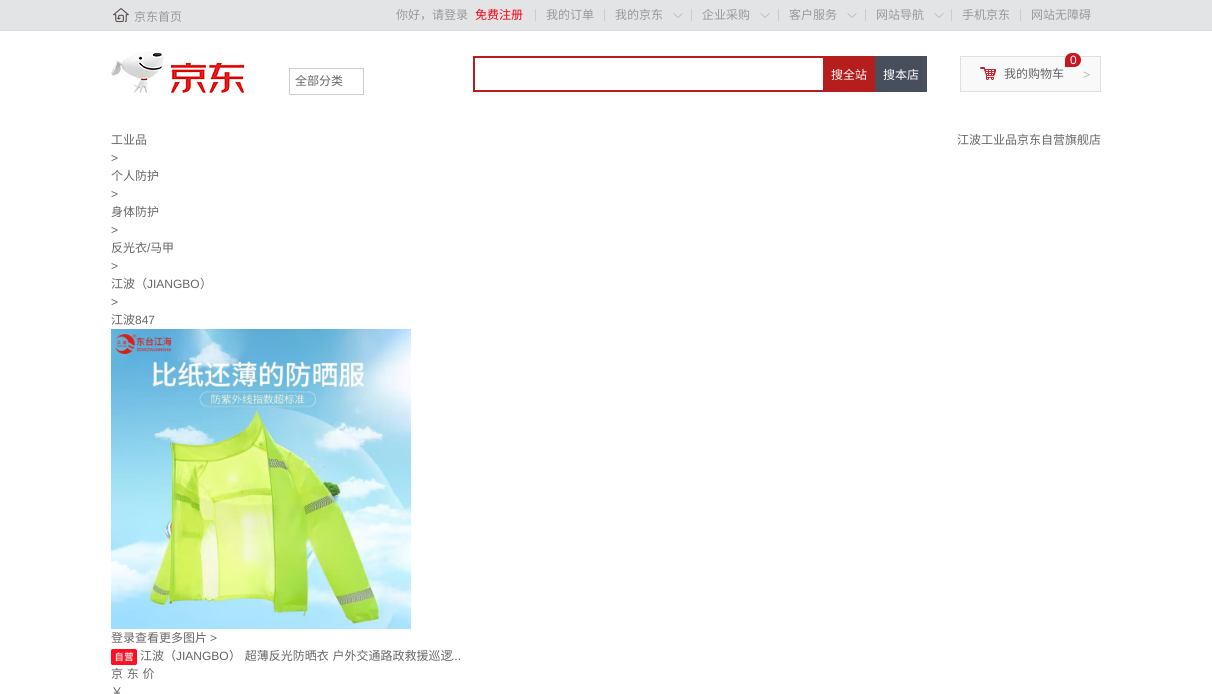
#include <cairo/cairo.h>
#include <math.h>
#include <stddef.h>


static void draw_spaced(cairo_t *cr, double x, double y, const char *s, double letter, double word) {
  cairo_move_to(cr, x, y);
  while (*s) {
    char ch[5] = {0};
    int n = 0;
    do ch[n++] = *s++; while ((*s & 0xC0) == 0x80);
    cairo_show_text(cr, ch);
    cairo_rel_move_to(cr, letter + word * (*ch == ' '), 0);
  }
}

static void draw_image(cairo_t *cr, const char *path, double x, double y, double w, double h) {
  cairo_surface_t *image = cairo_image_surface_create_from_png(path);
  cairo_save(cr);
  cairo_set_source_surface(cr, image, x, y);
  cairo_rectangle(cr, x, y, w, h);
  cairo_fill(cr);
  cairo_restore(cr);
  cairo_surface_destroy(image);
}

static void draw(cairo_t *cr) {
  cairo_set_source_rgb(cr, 1, 1, 1);
  cairo_paint(cr);
  cairo_set_source_rgb(cr, 227 / 255.0, 228 / 255.0, 229 / 255.0);
  cairo_rectangle(cr, 0, 0, 1212, 30);
  cairo_fill(cr);
  cairo_set_source_rgb(cr, 221 / 255.0, 221 / 255.0, 221 / 255.0);
  cairo_rectangle(cr, 0, 30, 1212, 1);
  cairo_fill(cr);
  draw_image(cr, "images/1.png", 113, 8, 16, 15);
  cairo_set_source_rgb(cr, 204 / 255.0, 204 / 255.0, 204 / 255.0);
  cairo_rectangle(cr, 535, 9, 1, 12);
  cairo_fill(cr);
  cairo_rectangle(cr, 604, 9, 1, 12);
  cairo_fill(cr);
  draw_image(cr, "images/2.png", 673, 13, 10, 5);
  cairo_rectangle(cr, 691, 9, 1, 12);
  cairo_fill(cr);
  draw_image(cr, "images/2.png", 760, 13, 10, 5);
  cairo_rectangle(cr, 778, 9, 1, 12);
  cairo_fill(cr);
  draw_image(cr, "images/2.png", 847, 13, 10, 5);
  cairo_rectangle(cr, 865, 9, 1, 12);
  cairo_fill(cr);
  draw_image(cr, "images/2.png", 934, 13, 10, 5);
  cairo_rectangle(cr, 951, 9, 1, 12);
  cairo_fill(cr);
  cairo_rectangle(cr, 1020, 9, 1, 12);
  cairo_fill(cr);
  draw_image(cr, "images/3.png", 111, 51, 134, 42);
  cairo_rectangle(cr, 289.5, 68.5, 74, 26);
  cairo_set_line_width(cr, 1);
  cairo_stroke(cr);
  cairo_set_source_rgb(cr, 182 / 255.0, 29 / 255.0, 29 / 255.0);
  cairo_rectangle(cr, 473, 56, 350, 2);
  cairo_fill(cr);
  cairo_rectangle(cr, 473, 90, 350, 2);
  cairo_fill(cr);
  cairo_rectangle(cr, 473, 56, 2, 36);
  cairo_fill(cr);
  cairo_rectangle(cr, 823, 56, 52, 36);
  cairo_fill(cr);
  cairo_set_source_rgb(cr, 71 / 255.0, 78 / 255.0, 92 / 255.0);
  cairo_rectangle(cr, 875, 56, 52, 36);
  cairo_fill(cr);
  cairo_set_source_rgb(cr, 249 / 255.0, 249 / 255.0, 249 / 255.0);
  cairo_rectangle(cr, 960.5, 56.5, 140, 35);
  cairo_fill_preserve(cr);
  cairo_set_source_rgb(cr, 223 / 255.0, 223 / 255.0, 223 / 255.0);
  cairo_stroke(cr);
  cairo_set_source_rgb(cr, 200 / 255.0, 22 / 255.0, 35 / 255.0);
  cairo_new_path(cr);
  cairo_move_to(cr, 1072, 53);
  cairo_line_to(cr, 1074, 53);
  cairo_curve_to(cr, 1078, 53, 1081, 56, 1081, 60);
  cairo_curve_to(cr, 1081, 64, 1078, 67, 1074, 67);
  cairo_line_to(cr, 1065, 67);
  cairo_line_to(cr, 1065, 60);
  cairo_curve_to(cr, 1065, 56, 1068, 53, 1072, 53);
  cairo_close_path(cr);
  cairo_fill(cr);
  draw_image(cr, "images/4.png", 980, 67, 16, 13);
  draw_image(cr, "images/5.png", 111, 329, 300, 300);
  draw_image(cr, "images/6.png", 111, 649, 26, 16);
  cairo_select_font_face(cr, "Noto Sans CJK SC", CAIRO_FONT_SLANT_NORMAL, CAIRO_FONT_WEIGHT_NORMAL);
  cairo_set_font_size(cr, 12);
  cairo_set_source_rgb(cr, 153 / 255.0, 153 / 255.0, 153 / 255.0);
  cairo_move_to(cr, 134, 21);
  cairo_show_text(cr, "京东首页");
  cairo_move_to(cr, 396, 19);
  cairo_show_text(cr, "你好，请登录");
  cairo_set_source_rgb(cr, 243 / 255.0, 2 / 255.0, 19 / 255.0);
  cairo_move_to(cr, 475, 19);
  cairo_show_text(cr, "免费注册");
  cairo_set_source_rgb(cr, 153 / 255.0, 153 / 255.0, 153 / 255.0);
  cairo_move_to(cr, 546, 19);
  cairo_show_text(cr, "我的订单");
  cairo_move_to(cr, 615, 19);
  cairo_show_text(cr, "我的京东");
  cairo_move_to(cr, 702, 19);
  cairo_show_text(cr, "企业采购");
  cairo_move_to(cr, 789, 19);
  cairo_show_text(cr, "客户服务");
  cairo_move_to(cr, 876, 19);
  cairo_show_text(cr, "网站导航");
  cairo_move_to(cr, 962, 19);
  cairo_show_text(cr, "手机京东");
  cairo_move_to(cr, 1031, 19);
  cairo_show_text(cr, "网站无障碍");
  cairo_set_source_rgb(cr, 102 / 255.0, 102 / 255.0, 102 / 255.0);
  cairo_move_to(cr, 295, 85);
  cairo_show_text(cr, "全部分类");
  cairo_set_source_rgb(cr, 1, 1, 1);
  cairo_move_to(cr, 831, 79);
  cairo_show_text(cr, "搜全站");
  cairo_move_to(cr, 883, 79);
  cairo_show_text(cr, "搜本店");
  cairo_select_font_face(cr, "Liberation Sans", CAIRO_FONT_SLANT_NORMAL, CAIRO_FONT_WEIGHT_NORMAL);
  cairo_move_to(cr, 1070, 64);
  cairo_show_text(cr, "0");
  cairo_select_font_face(cr, "Noto Sans CJK SC", CAIRO_FONT_SLANT_NORMAL, CAIRO_FONT_WEIGHT_NORMAL);
  cairo_set_source_rgb(cr, 102 / 255.0, 102 / 255.0, 102 / 255.0);
  cairo_move_to(cr, 1004, 78);
  cairo_show_text(cr, "我的购物车");
  cairo_select_font_face(cr, "Liberation Serif", CAIRO_FONT_SLANT_NORMAL, CAIRO_FONT_WEIGHT_NORMAL);
  cairo_set_font_size(cr, 13);
  cairo_set_source_rgb(cr, 153 / 255.0, 153 / 255.0, 153 / 255.0);
  cairo_move_to(cr, 1083, 79);
  cairo_show_text(cr, ">");
  cairo_select_font_face(cr, "Noto Sans CJK SC", CAIRO_FONT_SLANT_NORMAL, CAIRO_FONT_WEIGHT_NORMAL);
  cairo_set_font_size(cr, 12);
  cairo_set_source_rgb(cr, 102 / 255.0, 102 / 255.0, 102 / 255.0);
  cairo_move_to(cr, 111, 144);
  cairo_show_text(cr, "工业品");
  cairo_select_font_face(cr, "Liberation Sans", CAIRO_FONT_SLANT_NORMAL, CAIRO_FONT_WEIGHT_NORMAL);
  cairo_move_to(cr, 111, 162);
  cairo_show_text(cr, ">");
  cairo_select_font_face(cr, "Noto Sans CJK SC", CAIRO_FONT_SLANT_NORMAL, CAIRO_FONT_WEIGHT_NORMAL);
  cairo_move_to(cr, 111, 180);
  cairo_show_text(cr, "个人防护");
  cairo_select_font_face(cr, "Liberation Sans", CAIRO_FONT_SLANT_NORMAL, CAIRO_FONT_WEIGHT_NORMAL);
  cairo_move_to(cr, 111, 198);
  cairo_show_text(cr, ">");
  cairo_select_font_face(cr, "Noto Sans CJK SC", CAIRO_FONT_SLANT_NORMAL, CAIRO_FONT_WEIGHT_NORMAL);
  cairo_move_to(cr, 111, 216);
  cairo_show_text(cr, "身体防护");
  cairo_select_font_face(cr, "Liberation Sans", CAIRO_FONT_SLANT_NORMAL, CAIRO_FONT_WEIGHT_NORMAL);
  cairo_move_to(cr, 111, 234);
  cairo_show_text(cr, ">");
  cairo_select_font_face(cr, "Noto Sans CJK SC", CAIRO_FONT_SLANT_NORMAL, CAIRO_FONT_WEIGHT_NORMAL);
  cairo_move_to(cr, 111, 252);
  cairo_show_text(cr, "反光衣");
  cairo_select_font_face(cr, "Liberation Sans", CAIRO_FONT_SLANT_NORMAL, CAIRO_FONT_WEIGHT_NORMAL);
  cairo_move_to(cr, 147, 252);
  cairo_show_text(cr, "/");
  cairo_select_font_face(cr, "Noto Sans CJK SC", CAIRO_FONT_SLANT_NORMAL, CAIRO_FONT_WEIGHT_NORMAL);
  cairo_move_to(cr, 150, 252);
  cairo_show_text(cr, "马甲");
  cairo_select_font_face(cr, "Liberation Sans", CAIRO_FONT_SLANT_NORMAL, CAIRO_FONT_WEIGHT_NORMAL);
  cairo_move_to(cr, 111, 270);
  cairo_show_text(cr, ">");
  cairo_select_font_face(cr, "Noto Sans CJK SC", CAIRO_FONT_SLANT_NORMAL, CAIRO_FONT_WEIGHT_NORMAL);
  cairo_move_to(cr, 111, 288);
  cairo_show_text(cr, "江波（");
  cairo_select_font_face(cr, "Liberation Sans", CAIRO_FONT_SLANT_NORMAL, CAIRO_FONT_WEIGHT_NORMAL);
  cairo_move_to(cr, 147, 288);
  cairo_show_text(cr, "JIANGBO");
  cairo_select_font_face(cr, "Noto Sans CJK SC", CAIRO_FONT_SLANT_NORMAL, CAIRO_FONT_WEIGHT_NORMAL);
  cairo_move_to(cr, 200, 288);
  cairo_show_text(cr, "）");
  cairo_select_font_face(cr, "Liberation Sans", CAIRO_FONT_SLANT_NORMAL, CAIRO_FONT_WEIGHT_NORMAL);
  cairo_move_to(cr, 111, 306);
  cairo_show_text(cr, ">");
  cairo_select_font_face(cr, "Noto Sans CJK SC", CAIRO_FONT_SLANT_NORMAL, CAIRO_FONT_WEIGHT_NORMAL);
  cairo_move_to(cr, 111, 324);
  cairo_show_text(cr, "江波");
  cairo_select_font_face(cr, "Liberation Sans", CAIRO_FONT_SLANT_NORMAL, CAIRO_FONT_WEIGHT_NORMAL);
  cairo_move_to(cr, 135, 324);
  cairo_show_text(cr, "847");
  cairo_select_font_face(cr, "Noto Sans CJK SC", CAIRO_FONT_SLANT_NORMAL, CAIRO_FONT_WEIGHT_NORMAL);
  cairo_move_to(cr, 957, 144);
  cairo_show_text(cr, "江波工业品京东自营旗舰店");
  cairo_move_to(cr, 111, 642);
  cairo_show_text(cr, "登录查看更多图片");
  cairo_select_font_face(cr, "Liberation Sans", CAIRO_FONT_SLANT_NORMAL, CAIRO_FONT_WEIGHT_NORMAL);
  cairo_move_to(cr, 210, 642);
  cairo_show_text(cr, ">");
  cairo_select_font_face(cr, "Noto Sans CJK SC", CAIRO_FONT_SLANT_NORMAL, CAIRO_FONT_WEIGHT_NORMAL);
  cairo_move_to(cr, 140, 660);
  cairo_show_text(cr, "江波（");
  cairo_select_font_face(cr, "Liberation Sans", CAIRO_FONT_SLANT_NORMAL, CAIRO_FONT_WEIGHT_NORMAL);
  cairo_move_to(cr, 176, 660);
  cairo_show_text(cr, "JIANGBO");
  cairo_select_font_face(cr, "Noto Sans CJK SC", CAIRO_FONT_SLANT_NORMAL, CAIRO_FONT_WEIGHT_NORMAL);
  draw_spaced(cr, 229, 660, "） 超薄反光防晒衣 户外交通路政救援巡逻", 0, 1);
  cairo_select_font_face(cr, "Liberation Sans", CAIRO_FONT_SLANT_NORMAL, CAIRO_FONT_WEIGHT_NORMAL);
  cairo_move_to(cr, 451, 660);
  cairo_show_text(cr, "...");
  cairo_select_font_face(cr, "Noto Sans CJK SC", CAIRO_FONT_SLANT_NORMAL, CAIRO_FONT_WEIGHT_NORMAL);
  draw_spaced(cr, 111, 678, "京 东 价", 0, 1);
  cairo_move_to(cr, 111, 696);
  cairo_show_text(cr, "￥");
}

int main(void) {
  cairo_surface_t *surface = cairo_image_surface_create(CAIRO_FORMAT_RGB24, 1212, 694);
  cairo_t *cr = cairo_create(surface);
  cairo_font_options_t *options = cairo_font_options_create();
  cairo_font_options_set_hint_metrics(options, CAIRO_HINT_METRICS_OFF);
  cairo_font_options_set_hint_style(options, CAIRO_HINT_STYLE_NONE);
  cairo_set_font_options(cr, options);
  cairo_set_miter_limit(cr, 4);
  draw(cr);
  cairo_surface_write_to_png(surface, "out.png");
  cairo_font_options_destroy(options);
  cairo_destroy(cr);
  cairo_surface_destroy(surface);
  return 0;
}
